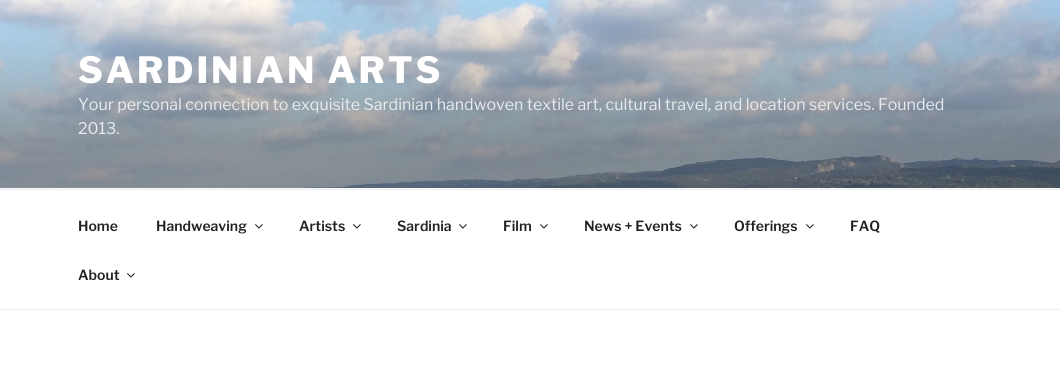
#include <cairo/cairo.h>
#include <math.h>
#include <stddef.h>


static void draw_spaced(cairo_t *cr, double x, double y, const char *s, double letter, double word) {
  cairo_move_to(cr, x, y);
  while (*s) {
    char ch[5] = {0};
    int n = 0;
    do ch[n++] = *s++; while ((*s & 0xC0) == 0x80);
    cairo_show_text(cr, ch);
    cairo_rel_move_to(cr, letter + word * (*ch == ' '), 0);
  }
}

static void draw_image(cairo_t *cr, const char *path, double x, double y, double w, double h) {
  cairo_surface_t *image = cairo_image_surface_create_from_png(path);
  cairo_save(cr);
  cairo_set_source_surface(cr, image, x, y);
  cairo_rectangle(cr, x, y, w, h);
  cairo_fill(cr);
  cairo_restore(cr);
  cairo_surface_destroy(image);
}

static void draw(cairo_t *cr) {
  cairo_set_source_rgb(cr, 1, 1, 1);
  cairo_paint(cr);
  cairo_set_source_rgb(cr, 250 / 255.0, 250 / 255.0, 250 / 255.0);
  cairo_rectangle(cr, 0, 188, 1060, 1);
  cairo_fill(cr);
  draw_image(cr, "images/1.png", 0, 0, 1060, 188);
  cairo_set_source_rgb(cr, 238 / 255.0, 238 / 255.0, 238 / 255.0);
  cairo_rectangle(cr, 0, 189, 1060, 1);
  cairo_fill(cr);
  cairo_rectangle(cr, 0, 309, 1060, 1);
  cairo_fill(cr);
  draw_image(cr, "images/2.png", 255, 224, 8, 5);
  draw_image(cr, "images/2.png", 353, 224, 8, 5);
  draw_image(cr, "images/2.png", 459, 224, 8, 5);
  draw_image(cr, "images/2.png", 540, 224, 8, 5);
  draw_image(cr, "images/2.png", 690, 224, 8, 5);
  draw_image(cr, "images/2.png", 806, 224, 8, 5);
  draw_image(cr, "images/2.png", 127, 273, 8, 5);
  cairo_select_font_face(cr, "Libre Franklin Thin", CAIRO_FONT_SLANT_NORMAL, CAIRO_FONT_WEIGHT_NORMAL);
  cairo_set_font_size(cr, 36);
  cairo_set_source_rgb(cr, 1, 1, 1);
  draw_spaced(cr, 78, 83, "SARDINIAN ARTS", 2.9, 0);
  cairo_select_font_face(cr, "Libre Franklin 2 Thin", CAIRO_FONT_SLANT_NORMAL, CAIRO_FONT_WEIGHT_NORMAL);
  cairo_set_font_size(cr, 16);
  cairo_set_source_rgb(cr, 233 / 255.0, 235 / 255.0, 237 / 255.0);
  cairo_move_to(cr, 78, 110);
  cairo_show_text(cr, "Your personal connection to exquisite Sardinian handwoven textile art, cultural travel, and location services. Founded");
  cairo_move_to(cr, 78, 134);
  cairo_show_text(cr, "2013.");
  cairo_select_font_face(cr, "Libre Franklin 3 Thin", CAIRO_FONT_SLANT_NORMAL, CAIRO_FONT_WEIGHT_NORMAL);
  cairo_set_font_size(cr, 14);
  cairo_set_source_rgb(cr, 34 / 255.0, 34 / 255.0, 34 / 255.0);
  cairo_move_to(cr, 78, 231);
  cairo_show_text(cr, "Home");
  cairo_move_to(cr, 156, 231);
  cairo_show_text(cr, "Handweaving");
  cairo_move_to(cr, 299, 231);
  cairo_show_text(cr, "Artists");
  cairo_move_to(cr, 397, 231);
  cairo_show_text(cr, "Sardinia");
  cairo_move_to(cr, 503, 231);
  cairo_show_text(cr, "Film");
  cairo_move_to(cr, 584, 231);
  cairo_show_text(cr, "News + Events");
  cairo_move_to(cr, 734, 231);
  cairo_show_text(cr, "Offerings");
  cairo_move_to(cr, 850, 231);
  cairo_show_text(cr, "FAQ");
  cairo_move_to(cr, 78, 280);
  cairo_show_text(cr, "About");
}

int main(void) {
  cairo_surface_t *surface = cairo_image_surface_create(CAIRO_FORMAT_RGB24, 1060, 389);
  cairo_t *cr = cairo_create(surface);
  cairo_font_options_t *options = cairo_font_options_create();
  cairo_font_options_set_hint_metrics(options, CAIRO_HINT_METRICS_OFF);
  cairo_font_options_set_hint_style(options, CAIRO_HINT_STYLE_NONE);
  cairo_set_font_options(cr, options);
  cairo_set_miter_limit(cr, 4);
  draw(cr);
  cairo_surface_write_to_png(surface, "out.png");
  cairo_font_options_destroy(options);
  cairo_destroy(cr);
  cairo_surface_destroy(surface);
  return 0;
}
